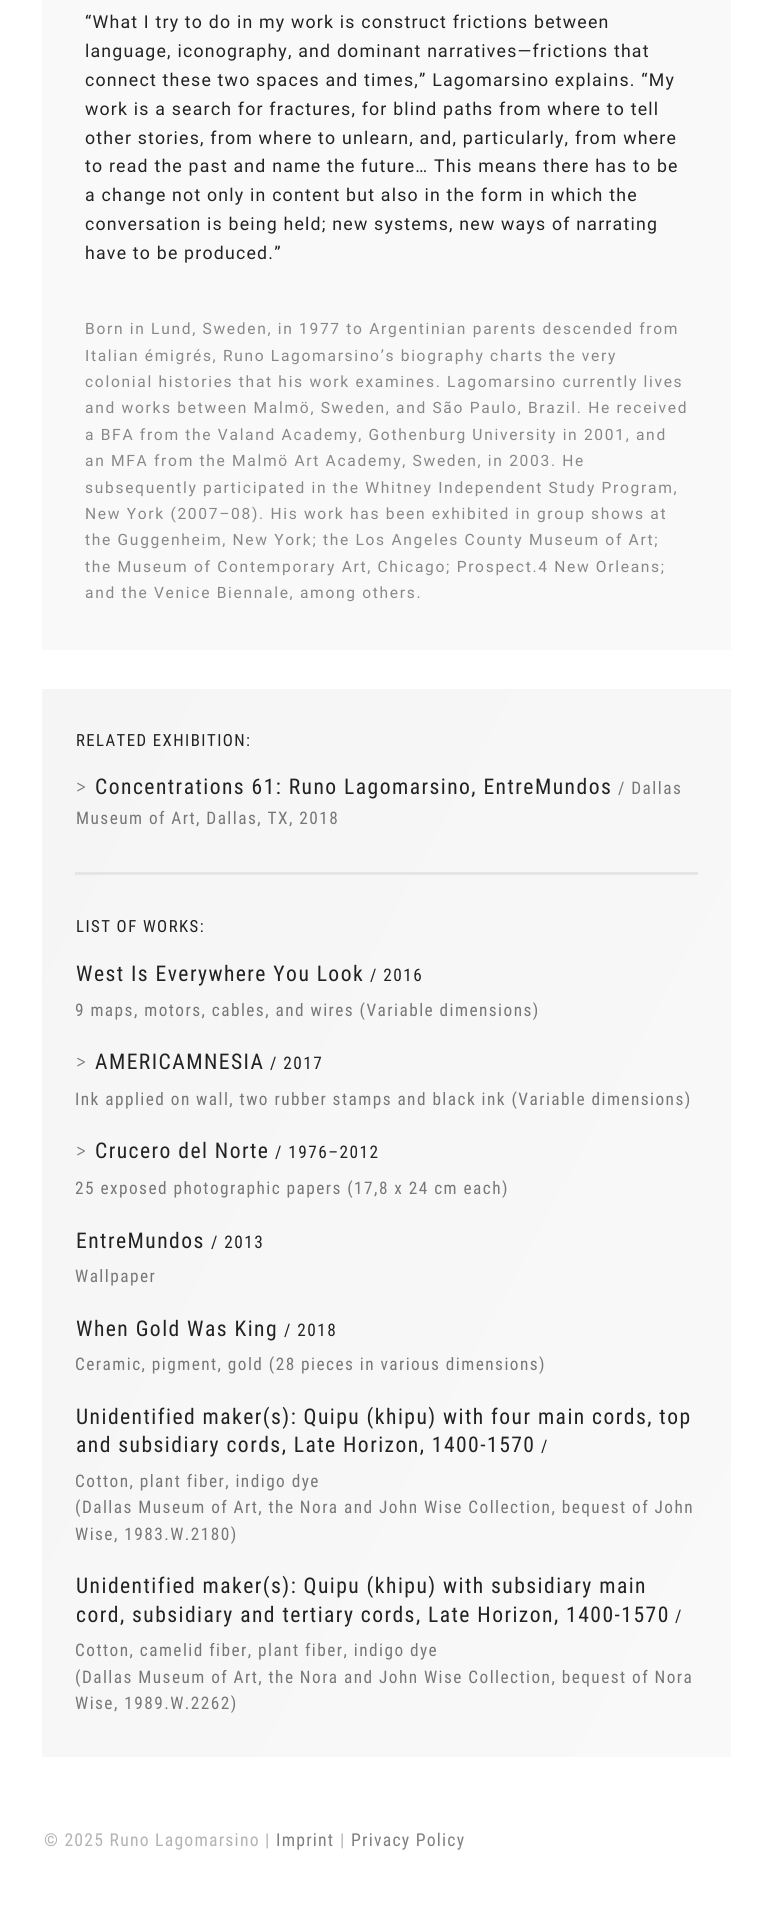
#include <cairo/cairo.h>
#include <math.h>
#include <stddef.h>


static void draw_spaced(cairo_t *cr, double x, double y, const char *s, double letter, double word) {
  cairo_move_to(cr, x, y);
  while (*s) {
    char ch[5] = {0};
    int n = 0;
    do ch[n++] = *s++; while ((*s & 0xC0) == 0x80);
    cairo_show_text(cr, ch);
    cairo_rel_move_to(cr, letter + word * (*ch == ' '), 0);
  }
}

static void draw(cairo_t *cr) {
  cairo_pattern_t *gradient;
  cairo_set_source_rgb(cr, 1, 1, 1);
  cairo_paint(cr);
  cairo_set_source_rgb(cr, 249 / 255.0, 249 / 255.0, 249 / 255.0);
  cairo_rectangle(cr, 42, 0, 689, 650);
  cairo_fill(cr);
  gradient = cairo_pattern_create_linear(-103, 962, 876, 1483);
  cairo_pattern_add_color_stop_rgba(gradient, 0, 245 / 255.0, 245 / 255.0, 245 / 255.0, 1);
  cairo_pattern_add_color_stop_rgba(gradient, 1, 249 / 255.0, 249 / 255.0, 249 / 255.0, 1);
  cairo_set_source(cr, gradient);
  cairo_pattern_destroy(gradient);
  cairo_rectangle(cr, 42, 689, 689, 1068);
  cairo_fill(cr);
  cairo_set_source_rgb(cr, 229 / 255.0, 229 / 255.0, 229 / 255.0);
  cairo_rectangle(cr, 75, 872, 623, 3);
  cairo_fill(cr);
  cairo_select_font_face(cr, "Roboto", CAIRO_FONT_SLANT_NORMAL, CAIRO_FONT_WEIGHT_NORMAL);
  cairo_set_font_size(cr, 17.75);
  cairo_set_source_rgb(cr, 34 / 255.0, 34 / 255.0, 34 / 255.0);
  draw_spaced(cr, 85, 28, "“What I try to do in my work is construct frictions between", 1.2, 0);
  draw_spaced(cr, 85, 57, "language, iconography, and dominant narratives—frictions that", 1.2, 0);
  draw_spaced(cr, 85, 86, "connect these two spaces and times,” Lagomarsino explains. “My", 1.2, 0);
  draw_spaced(cr, 85, 115, "work is a search for fractures, for blind paths from where to tell", 1.2, 0);
  draw_spaced(cr, 85, 144, "other stories, from where to unlearn, and, particularly, from where", 1.2, 0);
  draw_spaced(cr, 85, 172, "to read the past and name the future… This means there has to be", 1.2, 0);
  draw_spaced(cr, 85, 201, "a change not only in content but also in the form in which the", 1.2, 0);
  draw_spaced(cr, 85, 230, "conversation is being held; new systems, new ways of narrating", 1.2, 0);
  draw_spaced(cr, 85, 259, "have to be produced.”", 1.2, 0);
  cairo_set_font_size(cr, 15.6);
  cairo_set_source_rgb(cr, 136 / 255.0, 136 / 255.0, 136 / 255.0);
  draw_spaced(cr, 85, 334, "Born in Lund, Sweden, in 1977 to Argentinian parents descended from", 1.68, 0);
  draw_spaced(cr, 85, 361, "Italian émigrés, Runo Lagomarsino’s biography charts the very", 1.68, 0);
  draw_spaced(cr, 85, 387, "colonial histories that his work examines. Lagomarsino currently lives", 1.68, 0);
  draw_spaced(cr, 85, 413, "and works between Malmö, Sweden, and São Paulo, Brazil. He received", 1.68, 0);
  draw_spaced(cr, 85, 440, "a BFA from the Valand Academy, Gothenburg University in 2001, and", 1.68, 0);
  draw_spaced(cr, 85, 466, "an MFA from the Malmö Art Academy, Sweden, in 2003. He", 1.68, 0);
  draw_spaced(cr, 85, 493, "subsequently participated in the Whitney Independent Study Program,", 1.68, 0);
  draw_spaced(cr, 85, 519, "New York (2007–08). His work has been exhibited in group shows at", 1.68, 0);
  draw_spaced(cr, 85, 545, "the Guggenheim, New York; the Los Angeles County Museum of Art;", 1.68, 0);
  draw_spaced(cr, 85, 572, "the Museum of Contemporary Art, Chicago; Prospect.4 New Orleans;", 1.68, 0);
  draw_spaced(cr, 85, 598, "and the Venice Biennale, among others.", 1.68, 0);
  cairo_select_font_face(cr, "Roboto Condensed", CAIRO_FONT_SLANT_NORMAL, CAIRO_FONT_WEIGHT_NORMAL);
  cairo_set_font_size(cr, 16.75);
  cairo_set_source_rgb(cr, 34 / 255.0, 34 / 255.0, 34 / 255.0);
  draw_spaced(cr, 76, 746, "RELATED EXHIBITION:", 1.45, 0);
  cairo_select_font_face(cr, "Roboto Condensed Light", CAIRO_FONT_SLANT_NORMAL, CAIRO_FONT_WEIGHT_NORMAL);
  cairo_set_font_size(cr, 21.6);
  cairo_set_source_rgb(cr, 119 / 255.0, 119 / 255.0, 119 / 255.0);
  draw_spaced(cr, 76, 794, ">", 1.45, 0);
  cairo_select_font_face(cr, "Roboto Condensed", CAIRO_FONT_SLANT_NORMAL, CAIRO_FONT_WEIGHT_NORMAL);
  cairo_set_source_rgb(cr, 34 / 255.0, 34 / 255.0, 34 / 255.0);
  draw_spaced(cr, 95, 794, "Concentrations 61: Runo Lagomarsino, EntreMundos", 1.45, 0);
  cairo_set_font_size(cr, 17.3);
  cairo_set_source_rgb(cr, 119 / 255.0, 119 / 255.0, 119 / 255.0);
  draw_spaced(cr, 618, 794, "/ Dallas", 1.45, 0);
  draw_spaced(cr, 76, 824, "Museum of Art, Dallas, TX, 2018", 1.45, 0);
  cairo_set_font_size(cr, 16.75);
  cairo_set_source_rgb(cr, 34 / 255.0, 34 / 255.0, 34 / 255.0);
  draw_spaced(cr, 76, 932, "LIST OF WORKS:", 1.45, 0);
  cairo_set_font_size(cr, 21.6);
  draw_spaced(cr, 76, 981, "West Is Everywhere You Look", 1.45, 0);
  cairo_set_font_size(cr, 17.3);
  draw_spaced(cr, 370, 981, "/ 2016", 1.45, 0);
  cairo_set_source_rgb(cr, 119 / 255.0, 119 / 255.0, 119 / 255.0);
  draw_spaced(cr, 75, 1016, "9 maps, motors, cables, and wires (Variable dimensions)", 1.45, 0);
  cairo_select_font_face(cr, "Roboto Condensed Light", CAIRO_FONT_SLANT_NORMAL, CAIRO_FONT_WEIGHT_NORMAL);
  cairo_set_font_size(cr, 21.6);
  draw_spaced(cr, 76, 1069, ">", 1.45, 0);
  cairo_select_font_face(cr, "Roboto Condensed", CAIRO_FONT_SLANT_NORMAL, CAIRO_FONT_WEIGHT_NORMAL);
  cairo_set_source_rgb(cr, 34 / 255.0, 34 / 255.0, 34 / 255.0);
  draw_spaced(cr, 95, 1069, "AMERICAMNESIA", 1.45, 0);
  cairo_set_font_size(cr, 17.3);
  draw_spaced(cr, 270, 1069, "/ 2017", 1.45, 0);
  cairo_set_source_rgb(cr, 119 / 255.0, 119 / 255.0, 119 / 255.0);
  draw_spaced(cr, 75, 1105, "Ink applied on wall, two rubber stamps and black ink (Variable dimensions)", 1.45, 0);
  cairo_select_font_face(cr, "Roboto Condensed Light", CAIRO_FONT_SLANT_NORMAL, CAIRO_FONT_WEIGHT_NORMAL);
  cairo_set_font_size(cr, 21.6);
  draw_spaced(cr, 76, 1158, ">", 1.45, 0);
  cairo_select_font_face(cr, "Roboto Condensed", CAIRO_FONT_SLANT_NORMAL, CAIRO_FONT_WEIGHT_NORMAL);
  cairo_set_source_rgb(cr, 34 / 255.0, 34 / 255.0, 34 / 255.0);
  draw_spaced(cr, 95, 1158, "Crucero del Norte", 1.45, 0);
  cairo_set_font_size(cr, 17.3);
  draw_spaced(cr, 275, 1158, "/ 1976–2012", 1.45, 0);
  cairo_set_source_rgb(cr, 119 / 255.0, 119 / 255.0, 119 / 255.0);
  draw_spaced(cr, 75, 1194, "25 exposed photographic papers (17,8 x 24 cm each)", 1.45, 0);
  cairo_set_font_size(cr, 21.6);
  cairo_set_source_rgb(cr, 34 / 255.0, 34 / 255.0, 34 / 255.0);
  draw_spaced(cr, 76, 1248, "EntreMundos", 1.45, 0);
  cairo_set_font_size(cr, 17.3);
  draw_spaced(cr, 211, 1248, "/ 2013", 1.45, 0);
  cairo_set_source_rgb(cr, 119 / 255.0, 119 / 255.0, 119 / 255.0);
  draw_spaced(cr, 75, 1282, "Wallpaper", 1.45, 0);
  cairo_set_font_size(cr, 21.6);
  cairo_set_source_rgb(cr, 34 / 255.0, 34 / 255.0, 34 / 255.0);
  draw_spaced(cr, 76, 1336, "When Gold Was King", 1.45, 0);
  cairo_set_font_size(cr, 17.3);
  draw_spaced(cr, 284, 1336, "/ 2018", 1.45, 0);
  cairo_set_source_rgb(cr, 119 / 255.0, 119 / 255.0, 119 / 255.0);
  draw_spaced(cr, 75, 1370, "Ceramic, pigment, gold (28 pieces in various dimensions)", 1.45, 0);
  cairo_set_font_size(cr, 21.6);
  cairo_set_source_rgb(cr, 34 / 255.0, 34 / 255.0, 34 / 255.0);
  draw_spaced(cr, 76, 1424, "Unidentified maker(s): Quipu (khipu) with four main cords, top", 1.45, 0);
  draw_spaced(cr, 76, 1452, "and subsidiary cords, Late Horizon, 1400-1570", 1.45, 0);
  cairo_set_font_size(cr, 17.3);
  draw_spaced(cr, 541, 1452, "/", 1.45, 0);
  cairo_set_source_rgb(cr, 119 / 255.0, 119 / 255.0, 119 / 255.0);
  draw_spaced(cr, 75, 1487, "Cotton, plant fiber, indigo dye", 1.45, 0);
  draw_spaced(cr, 75, 1513, "(Dallas Museum of Art, the Nora and John Wise Collection, bequest of John", 1.45, 0);
  draw_spaced(cr, 75, 1540, "Wise, 1983.W.2180)", 1.45, 0);
  cairo_set_font_size(cr, 21.6);
  cairo_set_source_rgb(cr, 34 / 255.0, 34 / 255.0, 34 / 255.0);
  draw_spaced(cr, 76, 1593, "Unidentified maker(s): Quipu (khipu) with subsidiary main", 1.45, 0);
  draw_spaced(cr, 76, 1622, "cord, subsidiary and tertiary cords, Late Horizon, 1400-1570", 1.45, 0);
  cairo_set_font_size(cr, 17.3);
  draw_spaced(cr, 675, 1622, "/", 1.45, 0);
  cairo_set_source_rgb(cr, 119 / 255.0, 119 / 255.0, 119 / 255.0);
  draw_spaced(cr, 75, 1656, "Cotton, camelid fiber, plant fiber, indigo dye", 1.45, 0);
  draw_spaced(cr, 75, 1683, "(Dallas Museum of Art, the Nora and John Wise Collection, bequest of Nora", 1.45, 0);
  draw_spaced(cr, 75, 1709, "Wise, 1989.W.2262)", 1.45, 0);
  cairo_set_font_size(cr, 17.75);
  cairo_set_source_rgb(cr, 179 / 255.0, 179 / 255.0, 179 / 255.0);
  draw_spaced(cr, 44, 1846, "© 2025 Runo Lagomarsino |", 1.2, 0);
  cairo_set_source_rgb(cr, 128 / 255.0, 128 / 255.0, 128 / 255.0);
  draw_spaced(cr, 276, 1846, "Imprint", 1.2, 0);
  cairo_set_source_rgb(cr, 179 / 255.0, 179 / 255.0, 179 / 255.0);
  draw_spaced(cr, 340, 1846, "|", 1.2, 0);
  cairo_set_source_rgb(cr, 128 / 255.0, 128 / 255.0, 128 / 255.0);
  draw_spaced(cr, 351, 1846, "Privacy Policy", 1.2, 0);
}

int main(void) {
  cairo_surface_t *surface = cairo_image_surface_create(CAIRO_FORMAT_RGB24, 772, 1922);
  cairo_t *cr = cairo_create(surface);
  cairo_font_options_t *options = cairo_font_options_create();
  cairo_font_options_set_hint_metrics(options, CAIRO_HINT_METRICS_OFF);
  cairo_font_options_set_hint_style(options, CAIRO_HINT_STYLE_NONE);
  cairo_set_font_options(cr, options);
  cairo_set_miter_limit(cr, 4);
  draw(cr);
  cairo_surface_write_to_png(surface, "out.png");
  cairo_font_options_destroy(options);
  cairo_destroy(cr);
  cairo_surface_destroy(surface);
  return 0;
}
